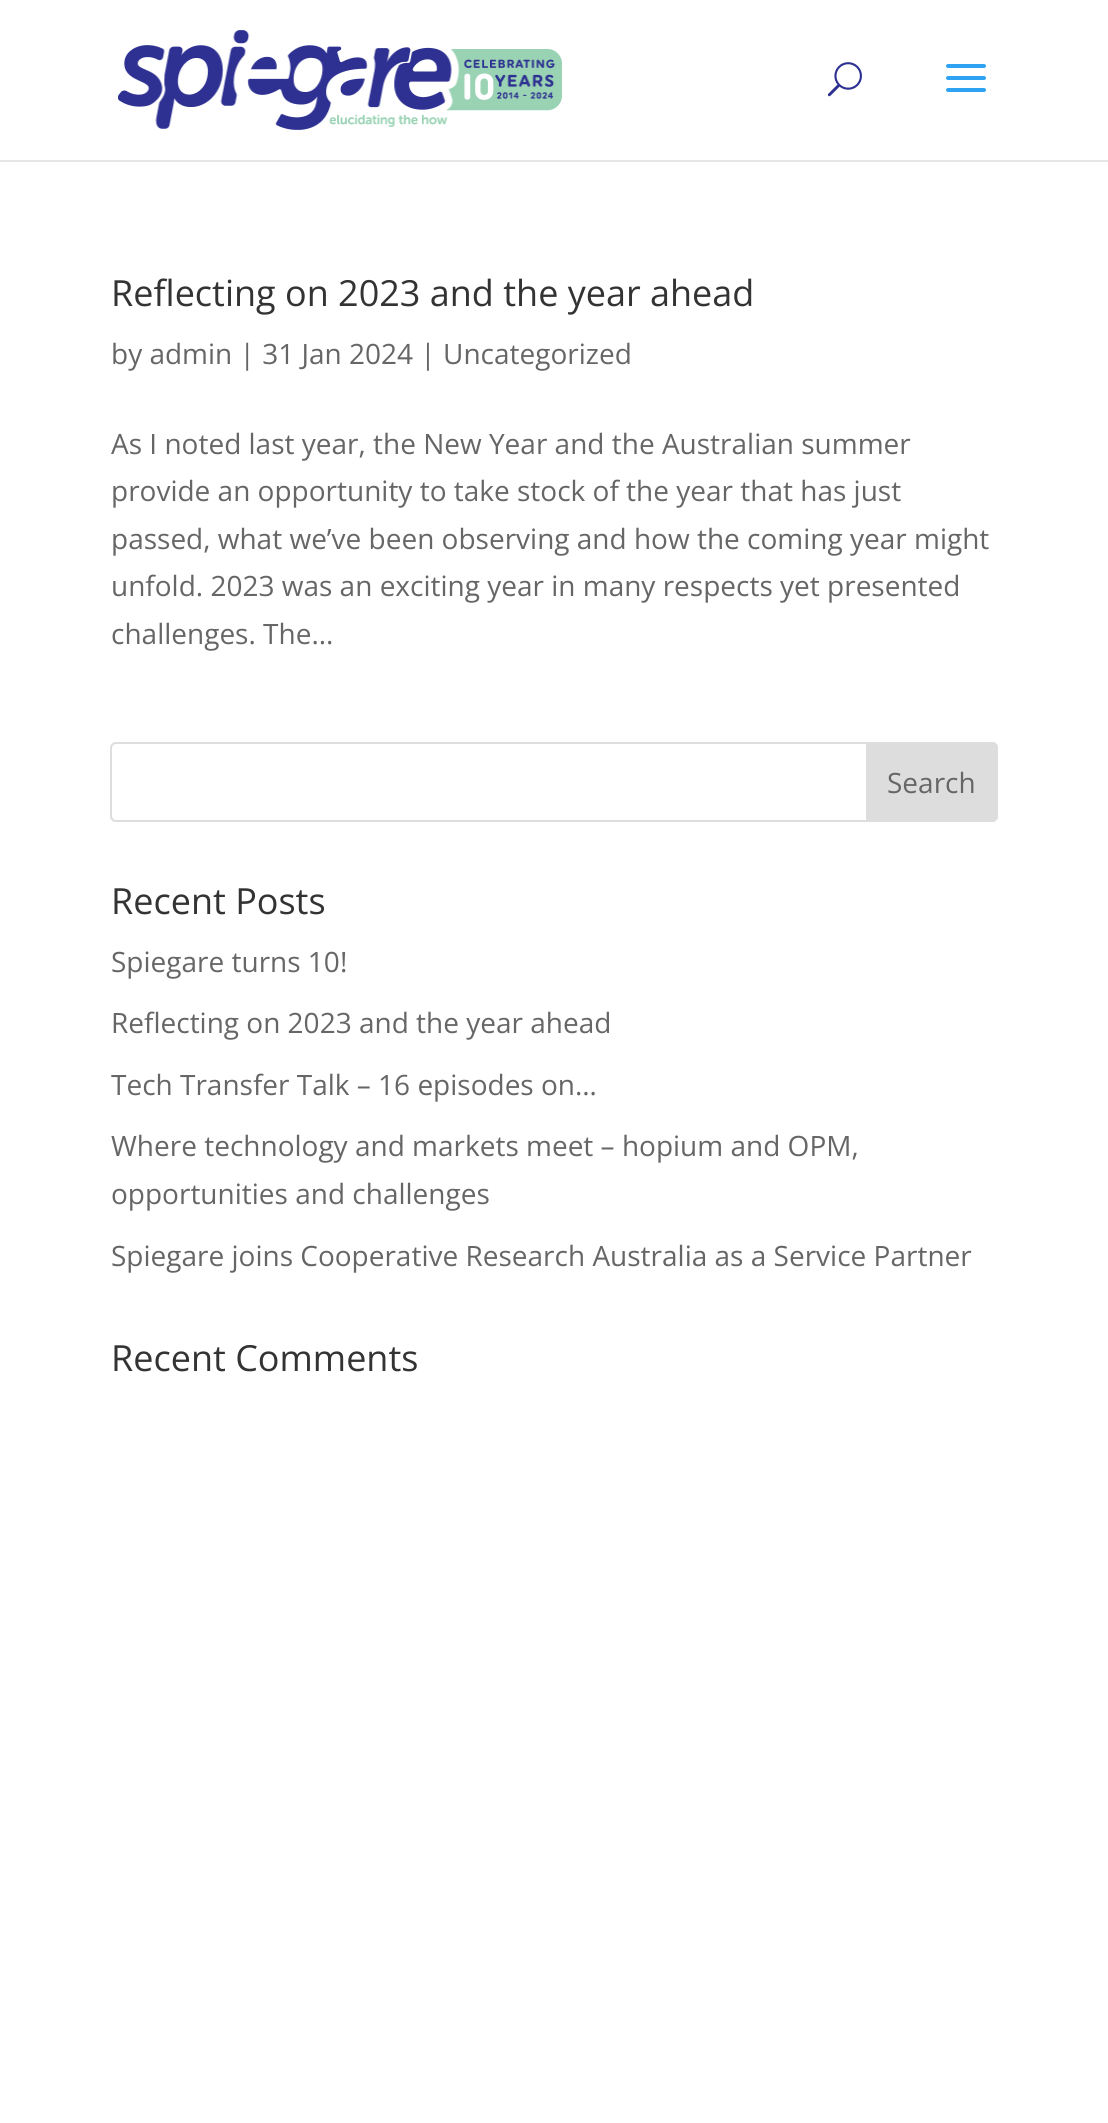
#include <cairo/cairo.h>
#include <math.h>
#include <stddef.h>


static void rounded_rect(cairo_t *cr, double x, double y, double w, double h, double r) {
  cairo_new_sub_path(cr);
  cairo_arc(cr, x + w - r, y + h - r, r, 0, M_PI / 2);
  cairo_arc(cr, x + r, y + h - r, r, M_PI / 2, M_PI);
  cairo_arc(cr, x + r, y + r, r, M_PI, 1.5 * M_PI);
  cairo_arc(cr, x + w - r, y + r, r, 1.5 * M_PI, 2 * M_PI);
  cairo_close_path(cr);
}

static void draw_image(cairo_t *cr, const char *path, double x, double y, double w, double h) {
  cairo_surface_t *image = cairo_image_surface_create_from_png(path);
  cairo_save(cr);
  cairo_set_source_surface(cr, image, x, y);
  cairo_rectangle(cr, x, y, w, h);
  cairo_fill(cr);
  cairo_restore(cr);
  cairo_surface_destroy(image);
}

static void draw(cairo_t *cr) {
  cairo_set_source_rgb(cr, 1, 1, 1);
  cairo_paint(cr);
  cairo_set_source_rgb(cr, 230 / 255.0, 230 / 255.0, 230 / 255.0);
  cairo_rectangle(cr, 0, 160, 1108, 2);
  cairo_fill(cr);
  draw_image(cr, "images/1.png", 118, 30, 444, 100);
  draw_image(cr, "images/2.png", 827, 62, 35, 35);
  draw_image(cr, "images/3.png", 946, 64, 40, 28);
  rounded_rect(cr, 111, 743, 886, 78, 5);
  cairo_set_source_rgb(cr, 221 / 255.0, 221 / 255.0, 221 / 255.0);
  cairo_stroke(cr);
  cairo_new_path(cr);
  cairo_move_to(cr, 867, 743);
  cairo_line_to(cr, 992, 743);
  cairo_curve_to(cr, 995, 743, 997, 745, 997, 748);
  cairo_line_to(cr, 997, 816);
  cairo_curve_to(cr, 997, 819, 995, 821, 992, 821);
  cairo_line_to(cr, 867, 821);
  cairo_close_path(cr);
  cairo_fill_preserve(cr);
  cairo_stroke(cr);
  cairo_select_font_face(cr, "Open Sans", CAIRO_FONT_SLANT_NORMAL, CAIRO_FONT_WEIGHT_NORMAL);
  cairo_set_font_size(cr, 36);
  cairo_set_source_rgb(cr, 51 / 255.0, 51 / 255.0, 51 / 255.0);
  cairo_move_to(cr, 111, 306);
  cairo_show_text(cr, "Reflecting on 2023 and the year ahead");
  cairo_set_font_size(cr, 28);
  cairo_set_source_rgb(cr, 102 / 255.0, 102 / 255.0, 102 / 255.0);
  cairo_move_to(cr, 111, 364);
  cairo_show_text(cr, "by admin | 31 Jan 2024 | Uncategorized");
  cairo_move_to(cr, 111, 454);
  cairo_show_text(cr, "As I noted last year, the New Year and the Australian summer");
  cairo_move_to(cr, 111, 501);
  cairo_show_text(cr, "provide an opportunity to take stock of the year that has just");
  cairo_move_to(cr, 111, 549);
  cairo_show_text(cr, "passed, what we’ve been observing and how the coming year might");
  cairo_move_to(cr, 111, 596);
  cairo_show_text(cr, "unfold. 2023 was an exciting year in many respects yet presented");
  cairo_move_to(cr, 111, 644);
  cairo_show_text(cr, "challenges. The...");
  cairo_move_to(cr, 887, 793);
  cairo_show_text(cr, "Search");
  cairo_set_font_size(cr, 36);
  cairo_set_source_rgb(cr, 51 / 255.0, 51 / 255.0, 51 / 255.0);
  cairo_move_to(cr, 111, 914);
  cairo_show_text(cr, "Recent Posts");
  cairo_set_font_size(cr, 28);
  cairo_set_source_rgb(cr, 102 / 255.0, 102 / 255.0, 102 / 255.0);
  cairo_move_to(cr, 111, 972);
  cairo_show_text(cr, "Spiegare turns 10!");
  cairo_move_to(cr, 111, 1033);
  cairo_show_text(cr, "Reflecting on 2023 and the year ahead");
  cairo_move_to(cr, 111, 1095);
  cairo_show_text(cr, "Tech Transfer Talk – 16 episodes on…");
  cairo_move_to(cr, 111, 1156);
  cairo_show_text(cr, "Where technology and markets meet – hopium and OPM,");
  cairo_move_to(cr, 111, 1204);
  cairo_show_text(cr, "opportunities and challenges");
  cairo_move_to(cr, 111, 1266);
  cairo_show_text(cr, "Spiegare joins Cooperative Research Australia as a Service Partner");
  cairo_set_font_size(cr, 36);
  cairo_set_source_rgb(cr, 51 / 255.0, 51 / 255.0, 51 / 255.0);
  cairo_move_to(cr, 111, 1371);
  cairo_show_text(cr, "Recent Comments");
}

int main(void) {
  cairo_surface_t *surface = cairo_image_surface_create(CAIRO_FORMAT_RGB24, 1108, 2123);
  cairo_t *cr = cairo_create(surface);
  cairo_font_options_t *options = cairo_font_options_create();
  cairo_font_options_set_hint_metrics(options, CAIRO_HINT_METRICS_OFF);
  cairo_font_options_set_hint_style(options, CAIRO_HINT_STYLE_NONE);
  cairo_set_font_options(cr, options);
  cairo_set_miter_limit(cr, 4);
  draw(cr);
  cairo_surface_write_to_png(surface, "out.png");
  cairo_font_options_destroy(options);
  cairo_destroy(cr);
  cairo_surface_destroy(surface);
  return 0;
}
